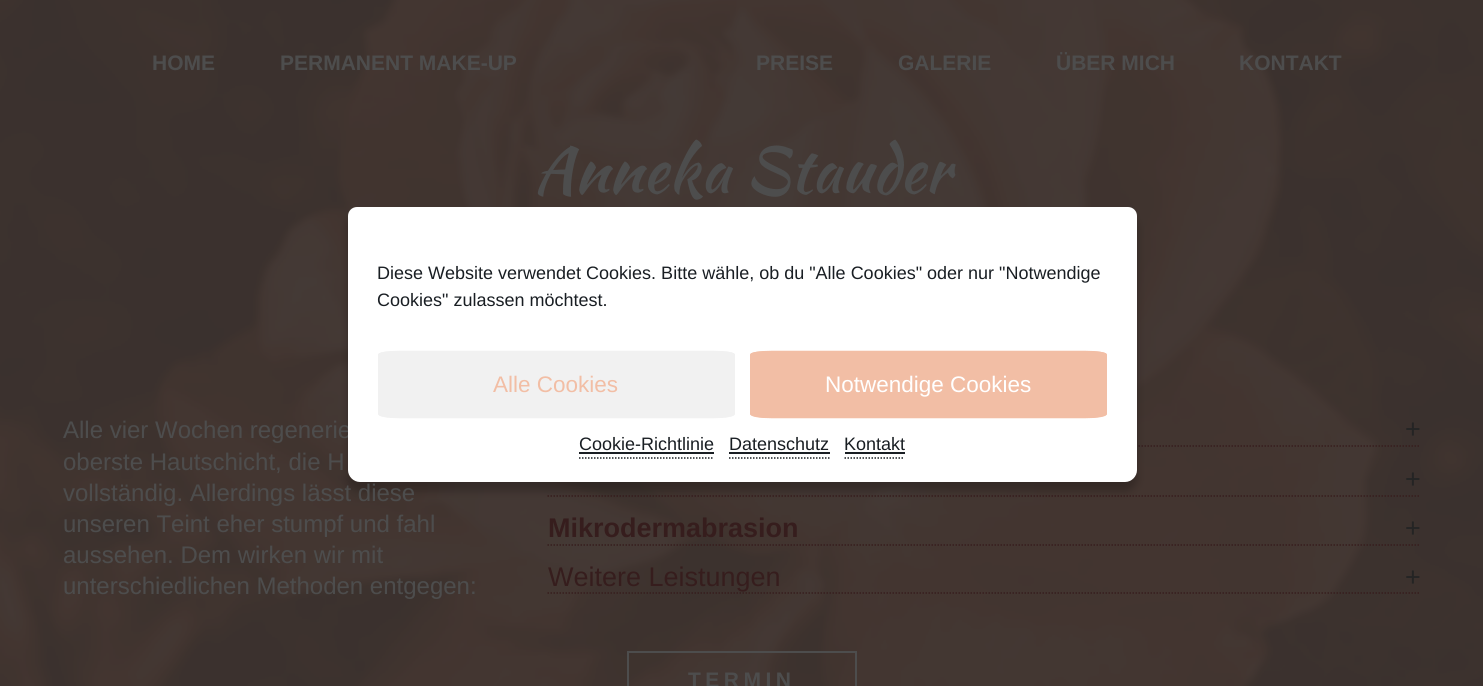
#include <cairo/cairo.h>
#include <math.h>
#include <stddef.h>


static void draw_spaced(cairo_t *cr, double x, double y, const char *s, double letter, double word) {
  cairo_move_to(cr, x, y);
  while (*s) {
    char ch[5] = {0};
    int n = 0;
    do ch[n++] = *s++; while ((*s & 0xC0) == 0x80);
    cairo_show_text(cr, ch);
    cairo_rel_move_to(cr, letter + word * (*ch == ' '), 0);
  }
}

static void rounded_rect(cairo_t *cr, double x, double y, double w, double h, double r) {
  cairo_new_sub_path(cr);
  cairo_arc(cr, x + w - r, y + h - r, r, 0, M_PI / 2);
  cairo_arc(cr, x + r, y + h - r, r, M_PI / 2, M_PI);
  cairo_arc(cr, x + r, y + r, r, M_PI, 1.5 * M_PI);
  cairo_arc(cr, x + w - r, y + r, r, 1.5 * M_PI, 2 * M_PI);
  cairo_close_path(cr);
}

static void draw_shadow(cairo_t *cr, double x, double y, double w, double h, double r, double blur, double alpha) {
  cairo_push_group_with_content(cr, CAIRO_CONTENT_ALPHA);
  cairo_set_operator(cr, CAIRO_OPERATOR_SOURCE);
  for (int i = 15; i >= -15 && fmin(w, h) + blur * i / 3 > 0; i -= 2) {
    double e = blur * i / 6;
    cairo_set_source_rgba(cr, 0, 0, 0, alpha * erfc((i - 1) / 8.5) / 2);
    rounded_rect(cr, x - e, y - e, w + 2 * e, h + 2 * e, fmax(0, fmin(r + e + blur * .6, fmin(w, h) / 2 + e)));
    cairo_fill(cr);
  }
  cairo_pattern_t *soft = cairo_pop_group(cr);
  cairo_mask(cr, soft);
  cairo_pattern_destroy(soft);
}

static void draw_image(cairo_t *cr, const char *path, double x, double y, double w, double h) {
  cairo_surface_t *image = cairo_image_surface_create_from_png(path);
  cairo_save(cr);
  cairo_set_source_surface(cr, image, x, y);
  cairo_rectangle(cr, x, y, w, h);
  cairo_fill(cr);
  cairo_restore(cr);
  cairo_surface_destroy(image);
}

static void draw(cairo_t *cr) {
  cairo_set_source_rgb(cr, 1, 1, 1);
  cairo_paint(cr);
  draw_image(cr, "images/1.png", 0, 0, 1483, 686);
  cairo_new_path(cr);
  cairo_move_to(cr, 547.5, 446);
  cairo_line_to(cr, 1420.5, 446);
  cairo_set_source_rgb(cr, 54 / 255.0, 29 / 255.0, 29 / 255.0);
  cairo_set_line_width(cr, 1.5);
  cairo_set_dash(cr, (double[]){1.5, 1.5}, 2, 0);
  cairo_stroke(cr);
  cairo_new_path(cr);
  cairo_move_to(cr, 547.5, 496);
  cairo_line_to(cr, 1420.5, 496);
  cairo_stroke(cr);
  cairo_set_source_rgb(cr, 0, 0, 0);
  draw_shadow(cr, 348, 216, 789, 275, 12, 4.5, 0.23);
  cairo_new_path(cr);
  cairo_move_to(cr, 547.5, 545);
  cairo_line_to(cr, 1420.5, 545);
  cairo_set_source_rgb(cr, 54 / 255.0, 29 / 255.0, 29 / 255.0);
  cairo_stroke(cr);
  cairo_new_path(cr);
  cairo_move_to(cr, 547.5, 593);
  cairo_line_to(cr, 1420.5, 593);
  cairo_stroke(cr);
  cairo_rectangle(cr, 628, 652, 228, 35);
  cairo_set_source_rgb(cr, 77 / 255.0, 77 / 255.0, 77 / 255.0);
  cairo_set_line_width(cr, 2);
  cairo_set_dash(cr, NULL, 0, 0);
  cairo_stroke(cr);
  cairo_select_font_face(cr, "Liberation Sans", CAIRO_FONT_SLANT_NORMAL, CAIRO_FONT_WEIGHT_BOLD);
  cairo_set_font_size(cr, 21);
  cairo_move_to(cr, 152, 70);
  cairo_show_text(cr, "HOME");
  cairo_move_to(cr, 280, 70);
  cairo_show_text(cr, "PERMANENT MAKE-UP");
  cairo_move_to(cr, 756, 70);
  cairo_show_text(cr, "PREISE");
  cairo_move_to(cr, 898, 70);
  cairo_show_text(cr, "GALERIE");
  cairo_move_to(cr, 1056, 70);
  cairo_show_text(cr, "ÜBER MICH");
  cairo_move_to(cr, 1239, 70);
  cairo_show_text(cr, "KONTAKT");
  cairo_select_font_face(cr, "Kaushan Script", CAIRO_FONT_SLANT_NORMAL, CAIRO_FONT_WEIGHT_NORMAL);
  cairo_set_font_size(cr, 63);
  cairo_move_to(cr, 534, 192);
  cairo_show_text(cr, "Anneka Stauder");
  cairo_select_font_face(cr, "Liberation Sans", CAIRO_FONT_SLANT_NORMAL, CAIRO_FONT_WEIGHT_NORMAL);
  cairo_set_font_size(cr, 24);
  cairo_move_to(cr, 63, 438);
  cairo_show_text(cr, "Alle vier Wochen regenerie");
  cairo_set_source_rgb(cr, 1, 1, 1);
  cairo_new_path(cr);
  cairo_move_to(cr, 357, 207);
  cairo_line_to(cr, 1128, 207);
  cairo_curve_to(cr, 1133, 207, 1137, 211, 1137, 216);
  cairo_line_to(cr, 1137, 470);
  cairo_curve_to(cr, 1137, 476.5, 1131.5, 482, 1125, 482);
  cairo_line_to(cr, 360, 482);
  cairo_curve_to(cr, 353.5, 482, 348, 476.5, 348, 470);
  cairo_line_to(cr, 348, 216);
  cairo_curve_to(cr, 348, 211, 352, 207, 357, 207);
  cairo_close_path(cr);
  cairo_fill(cr);
  cairo_set_font_size(cr, 18);
  cairo_set_source_rgb(cr, 25 / 255.0, 30 / 255.0, 35 / 255.0);
  cairo_move_to(cr, 377, 306);
  cairo_show_text(cr, "Cookies\" zulassen möchtest.");
  cairo_move_to(cr, 377, 279);
  cairo_show_text(cr, "Diese Website verwendet Cookies. Bitte wähle, ob du \"Alle Cookies\" oder nur \"Notwendige");
  cairo_move_to(cr, 844, 450);
  cairo_show_text(cr, "Kontakt");
  cairo_rectangle(cr, 845, 452, 60, 2);
  cairo_fill(cr);
  cairo_new_path(cr);
  cairo_move_to(cr, 844.5, 458);
  cairo_line_to(cr, 904.5, 458);
  cairo_set_line_width(cr, 1.5);
  cairo_set_dash(cr, (double[]){1.5, 1.5}, 2, 0);
  cairo_stroke(cr);
  cairo_move_to(cr, 729, 450);
  cairo_show_text(cr, "Datenschutz");
  cairo_rectangle(cr, 729, 452, 101, 2);
  cairo_fill(cr);
  cairo_new_path(cr);
  cairo_move_to(cr, 729, 458);
  cairo_line_to(cr, 829.5, 458);
  cairo_stroke(cr);
  cairo_move_to(cr, 579, 450);
  cairo_show_text(cr, "Cookie-Richtlinie");
  cairo_rectangle(cr, 579, 452, 135, 2);
  cairo_fill(cr);
  cairo_new_path(cr);
  cairo_move_to(cr, 579, 458);
  cairo_line_to(cr, 714, 458);
  cairo_stroke(cr);
  cairo_set_source_rgb(cr, 242 / 255.0, 190 / 255.0, 165 / 255.0);
  cairo_new_path(cr);
  cairo_move_to(cr, 771, 351);
  cairo_line_to(cr, 1086, 351);
  cairo_curve_to(cr, 1097, 351, 1107, 352, 1107, 355);
  cairo_line_to(cr, 1107, 414);
  cairo_curve_to(cr, 1107, 416, 1097, 418, 1086, 418);
  cairo_line_to(cr, 771, 418);
  cairo_curve_to(cr, 760, 418, 750, 416, 750, 414);
  cairo_line_to(cr, 750, 355);
  cairo_curve_to(cr, 750, 352, 760, 351, 771, 351);
  cairo_close_path(cr);
  cairo_fill(cr);
  cairo_new_path(cr);
  cairo_move_to(cr, 771.5, 351.5);
  cairo_line_to(cr, 1085.5, 351.5);
  cairo_curve_to(cr, 1097, 351.5, 1106, 353, 1106, 354.5);
  cairo_line_to(cr, 1106, 414);
  cairo_curve_to(cr, 1106, 416, 1097, 417.5, 1085.5, 417.5);
  cairo_line_to(cr, 771.5, 417.5);
  cairo_curve_to(cr, 760, 417.5, 751, 416, 751, 414);
  cairo_line_to(cr, 751, 354.5);
  cairo_curve_to(cr, 751, 353, 760, 351.5, 771.5, 351.5);
  cairo_close_path(cr);
  cairo_set_dash(cr, NULL, 0, 0);
  cairo_stroke(cr);
  cairo_set_font_size(cr, 22.5);
  cairo_set_source_rgb(cr, 1, 1, 1);
  cairo_move_to(cr, 825, 392);
  cairo_show_text(cr, "Notwendige Cookies");
  cairo_set_source_rgb(cr, 241 / 255.0, 241 / 255.0, 241 / 255.0);
  cairo_new_path(cr);
  cairo_move_to(cr, 399, 351);
  cairo_line_to(cr, 714, 351);
  cairo_curve_to(cr, 725, 351, 735, 352, 735, 355);
  cairo_line_to(cr, 735, 414);
  cairo_curve_to(cr, 735, 416, 725, 418, 714, 418);
  cairo_line_to(cr, 399, 418);
  cairo_curve_to(cr, 388, 418, 378, 416, 378, 414);
  cairo_line_to(cr, 378, 355);
  cairo_curve_to(cr, 378, 352, 388, 351, 399, 351);
  cairo_close_path(cr);
  cairo_fill(cr);
  cairo_new_path(cr);
  cairo_move_to(cr, 399.5, 351.5);
  cairo_line_to(cr, 713.5, 351.5);
  cairo_curve_to(cr, 725, 351.5, 734, 353, 734, 354.5);
  cairo_line_to(cr, 734, 414);
  cairo_curve_to(cr, 734, 416, 725, 417.5, 713.5, 417.5);
  cairo_line_to(cr, 399.5, 417.5);
  cairo_curve_to(cr, 388, 417.5, 379, 416, 379, 414);
  cairo_line_to(cr, 379, 354.5);
  cairo_curve_to(cr, 379, 353, 388, 351.5, 399.5, 351.5);
  cairo_close_path(cr);
  cairo_stroke(cr);
  cairo_set_source_rgb(cr, 242 / 255.0, 190 / 255.0, 165 / 255.0);
  cairo_move_to(cr, 493, 392);
  cairo_show_text(cr, "Alle Cookies");
  cairo_set_font_size(cr, 24);
  cairo_set_source_rgb(cr, 77 / 255.0, 77 / 255.0, 77 / 255.0);
  cairo_move_to(cr, 63, 470);
  cairo_show_text(cr, "oberste Hautschicht, die H");
  cairo_move_to(cr, 63, 501);
  cairo_show_text(cr, "vollständig. Allerdings lässt diese");
  cairo_move_to(cr, 63, 532);
  cairo_show_text(cr, "unseren Teint eher stumpf und fahl");
  cairo_move_to(cr, 63, 563);
  cairo_show_text(cr, "aussehen. Dem wirken wir mit");
  cairo_move_to(cr, 63, 594);
  cairo_show_text(cr, "unterschiedlichen Methoden entgegen:");
  cairo_set_font_size(cr, 27);
  cairo_set_source_rgb(cr, 36 / 255.0, 36 / 255.0, 36 / 255.0);
  cairo_move_to(cr, 1405, 438);
  cairo_show_text(cr, "+");
  cairo_move_to(cr, 1405, 488);
  cairo_show_text(cr, "+");
  cairo_select_font_face(cr, "Liberation Sans", CAIRO_FONT_SLANT_NORMAL, CAIRO_FONT_WEIGHT_BOLD);
  cairo_set_source_rgb(cr, 54 / 255.0, 29 / 255.0, 29 / 255.0);
  cairo_move_to(cr, 548, 537);
  cairo_show_text(cr, "Mikrodermabrasion");
  cairo_select_font_face(cr, "Liberation Sans", CAIRO_FONT_SLANT_NORMAL, CAIRO_FONT_WEIGHT_NORMAL);
  cairo_set_source_rgb(cr, 36 / 255.0, 36 / 255.0, 36 / 255.0);
  cairo_move_to(cr, 1405, 537);
  cairo_show_text(cr, "+");
  cairo_set_source_rgb(cr, 54 / 255.0, 29 / 255.0, 29 / 255.0);
  cairo_move_to(cr, 548, 586);
  cairo_show_text(cr, "Weitere Leistungen");
  cairo_set_source_rgb(cr, 36 / 255.0, 36 / 255.0, 36 / 255.0);
  cairo_move_to(cr, 1405, 586);
  cairo_show_text(cr, "+");
  cairo_select_font_face(cr, "Liberation Sans", CAIRO_FONT_SLANT_NORMAL, CAIRO_FONT_WEIGHT_BOLD);
  cairo_set_font_size(cr, 21);
  cairo_set_source_rgb(cr, 77 / 255.0, 77 / 255.0, 77 / 255.0);
  draw_spaced(cr, 688, 687, "TERMIN", 4.5, 0);
}

int main(void) {
  cairo_surface_t *surface = cairo_image_surface_create(CAIRO_FORMAT_RGB24, 1483, 686);
  cairo_t *cr = cairo_create(surface);
  cairo_font_options_t *options = cairo_font_options_create();
  cairo_font_options_set_hint_metrics(options, CAIRO_HINT_METRICS_OFF);
  cairo_font_options_set_hint_style(options, CAIRO_HINT_STYLE_NONE);
  cairo_set_font_options(cr, options);
  cairo_set_miter_limit(cr, 4);
  draw(cr);
  cairo_surface_write_to_png(surface, "out.png");
  cairo_font_options_destroy(options);
  cairo_destroy(cr);
  cairo_surface_destroy(surface);
  return 0;
}
